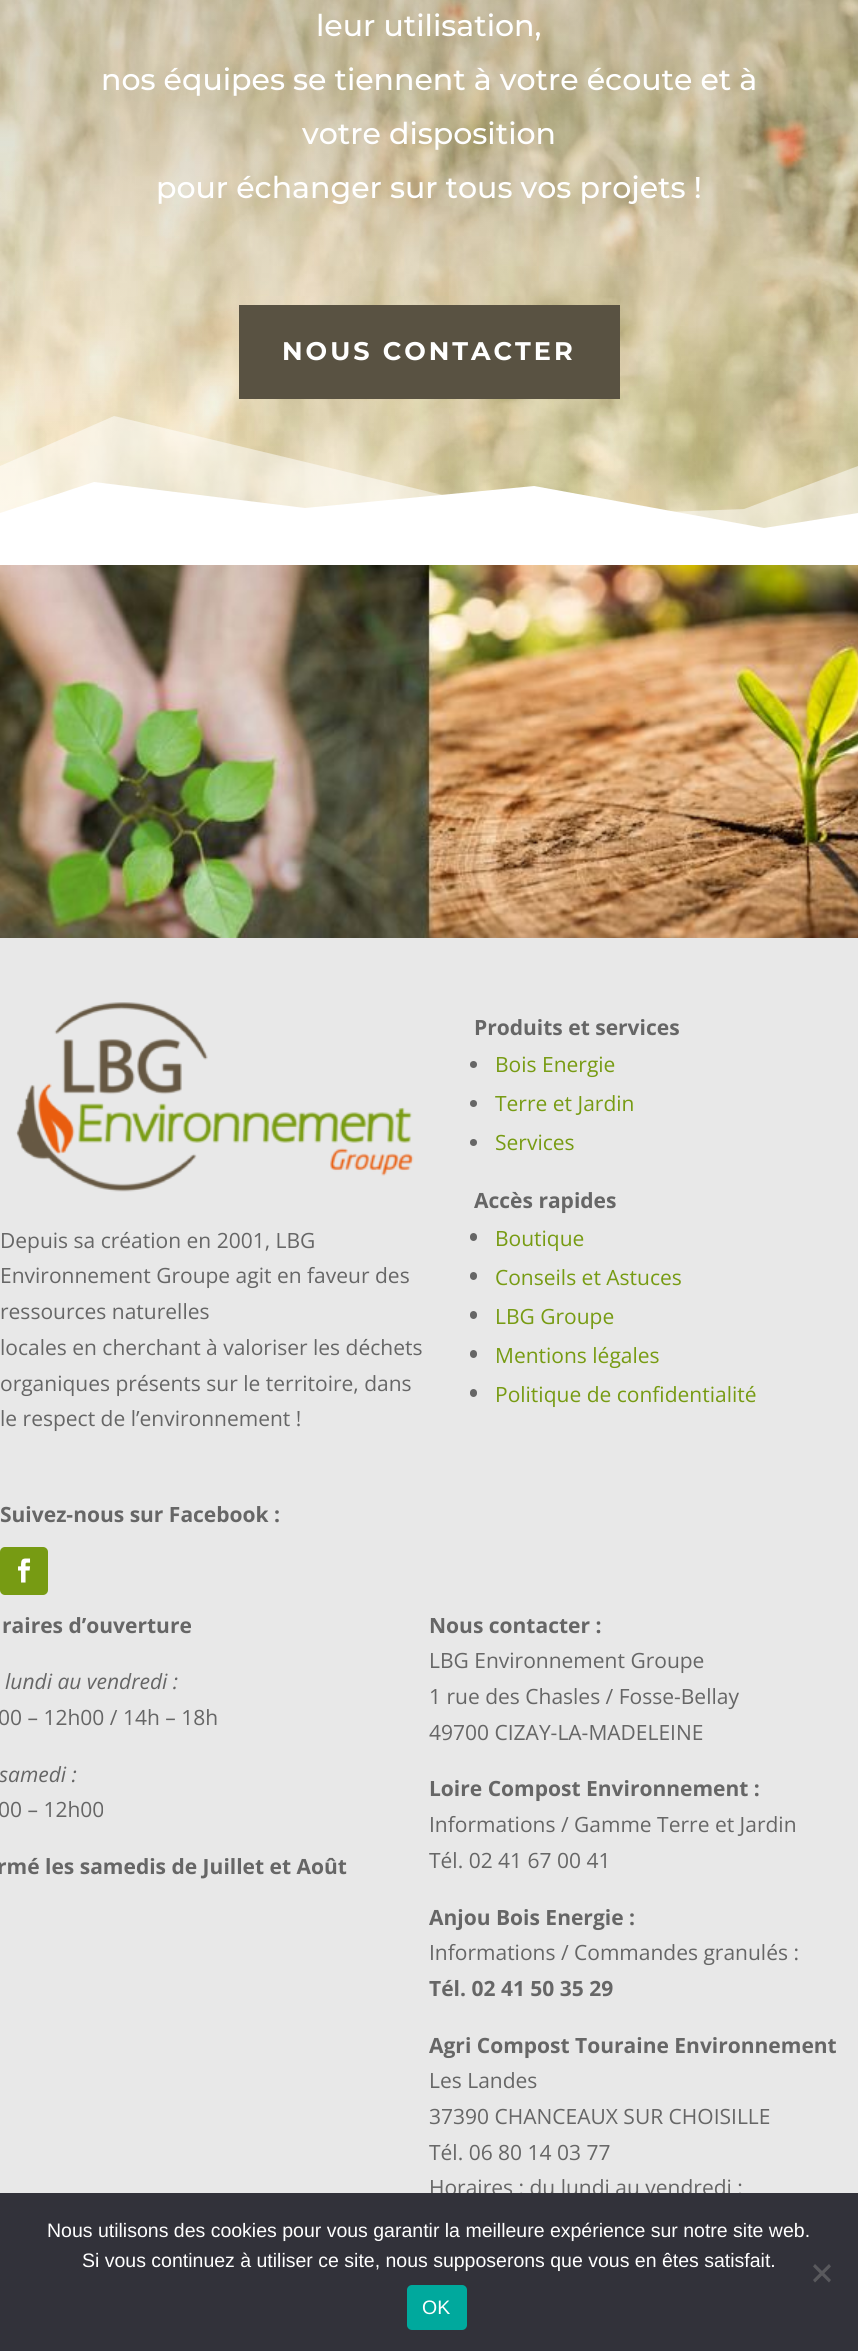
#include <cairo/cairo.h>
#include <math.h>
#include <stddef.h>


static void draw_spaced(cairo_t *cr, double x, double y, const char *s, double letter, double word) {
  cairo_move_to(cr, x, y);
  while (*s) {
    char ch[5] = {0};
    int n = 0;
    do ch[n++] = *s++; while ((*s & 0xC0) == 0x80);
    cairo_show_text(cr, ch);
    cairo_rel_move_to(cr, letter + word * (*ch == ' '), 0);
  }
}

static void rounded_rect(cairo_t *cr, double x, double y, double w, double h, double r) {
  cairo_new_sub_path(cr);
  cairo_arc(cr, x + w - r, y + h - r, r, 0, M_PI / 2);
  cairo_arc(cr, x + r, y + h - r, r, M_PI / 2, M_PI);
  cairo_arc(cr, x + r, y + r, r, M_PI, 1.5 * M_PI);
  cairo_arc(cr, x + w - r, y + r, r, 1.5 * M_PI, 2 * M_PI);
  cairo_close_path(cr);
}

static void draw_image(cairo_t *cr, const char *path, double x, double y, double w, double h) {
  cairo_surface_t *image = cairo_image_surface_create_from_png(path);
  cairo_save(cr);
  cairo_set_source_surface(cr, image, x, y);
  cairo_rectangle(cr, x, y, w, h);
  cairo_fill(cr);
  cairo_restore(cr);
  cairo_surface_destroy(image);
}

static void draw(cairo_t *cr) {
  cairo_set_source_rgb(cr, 1, 1, 1);
  cairo_paint(cr);
  draw_image(cr, "images/1.png", 0, 0, 858, 528);
  cairo_set_source_rgb(cr, 89 / 255.0, 82 / 255.0, 66 / 255.0);
  cairo_rectangle(cr, 239, 305, 381, 94);
  cairo_fill(cr);
  cairo_set_source_rgba(cr, 1, 1, 1, 0.5);
  cairo_new_path(cr);
  cairo_move_to(cr, 0, 466);
  cairo_line_to(cr, 114, 416);
  cairo_line_to(cr, 534, 517);
  cairo_line_to(cr, 744, 509);
  cairo_line_to(cr, 858, 466);
  cairo_line_to(cr, 858, 566);
  cairo_line_to(cr, 0, 566);
  cairo_close_path(cr);
  cairo_fill(cr);
  cairo_set_source_rgb(cr, 1, 1, 1);
  cairo_new_path(cr);
  cairo_move_to(cr, 0, 513);
  cairo_line_to(cr, 94, 482);
  cairo_line_to(cr, 305, 508);
  cairo_line_to(cr, 534, 486);
  cairo_line_to(cr, 764, 528);
  cairo_line_to(cr, 858, 513);
  cairo_line_to(cr, 858, 566);
  cairo_line_to(cr, 0, 566);
  cairo_close_path(cr);
  cairo_fill(cr);
  draw_image(cr, "images/2.png", 0, 565, 858, 373);
  cairo_set_source_rgb(cr, 232 / 255.0, 232 / 255.0, 232 / 255.0);
  cairo_rectangle(cr, 0, 938, 858, 1255);
  cairo_fill(cr);
  draw_image(cr, "images/3.png", 15, 1002, 399, 190);
  cairo_set_source_rgb(cr, 119 / 255.0, 155 / 255.0, 19 / 255.0);
  rounded_rect(cr, 0, 1547, 48, 48, 5);
  cairo_fill(cr);
  draw_image(cr, "images/4.png", 18, 1558, 13, 25);
  cairo_set_source_rgb(cr, 102 / 255.0, 102 / 255.0, 102 / 255.0);
  cairo_arc(cr, 473.5, 1064.5, 3.5, 0, 2 * M_PI);
  cairo_fill(cr);
  cairo_arc(cr, 473.5, 1103.5, 3.5, 0, 2 * M_PI);
  cairo_fill(cr);
  cairo_arc(cr, 473.5, 1142.5, 3.5, 0, 2 * M_PI);
  cairo_fill(cr);
  rounded_rect(cr, 470, 1233, 7, 8, 3.5);
  cairo_fill(cr);
  rounded_rect(cr, 470, 1272, 7, 8, 3.5);
  cairo_fill(cr);
  rounded_rect(cr, 470, 1311, 7, 8, 3.5);
  cairo_fill(cr);
  rounded_rect(cr, 470, 1350, 7, 8, 3.5);
  cairo_fill(cr);
  rounded_rect(cr, 470, 1389, 7, 8, 3.5);
  cairo_fill(cr);
  cairo_select_font_face(cr, "Montserrat Medium", CAIRO_FONT_SLANT_NORMAL, CAIRO_FONT_WEIGHT_NORMAL);
  cairo_set_font_size(cr, 30);
  cairo_set_source_rgb(cr, 1, 1, 1);
  cairo_move_to(cr, 316, 36);
  cairo_show_text(cr, "leur utilisation,");
  cairo_move_to(cr, 101, 90);
  cairo_show_text(cr, "nos équipes se tiennent à votre écoute et à");
  cairo_move_to(cr, 302, 144);
  cairo_show_text(cr, "votre disposition");
  cairo_move_to(cr, 156, 198);
  cairo_show_text(cr, "pour échanger sur tous vos projets !");
  cairo_select_font_face(cr, "Montserrat", CAIRO_FONT_SLANT_NORMAL, CAIRO_FONT_WEIGHT_BOLD);
  cairo_set_font_size(cr, 25.5);
  draw_spaced(cr, 282, 360, "NOUS CONTACTER", 3, 0);
  cairo_select_font_face(cr, "Open Sans", CAIRO_FONT_SLANT_NORMAL, CAIRO_FONT_WEIGHT_NORMAL);
  cairo_set_font_size(cr, 21);
  cairo_set_source_rgb(cr, 102 / 255.0, 102 / 255.0, 102 / 255.0);
  cairo_move_to(cr, 0, 1248);
  cairo_show_text(cr, "Depuis sa création en 2001, LBG");
  cairo_move_to(cr, 0, 1283);
  cairo_show_text(cr, "Environnement Groupe agit en faveur des");
  cairo_move_to(cr, 0, 1319);
  cairo_show_text(cr, "ressources naturelles");
  cairo_move_to(cr, 0, 1355);
  cairo_show_text(cr, "locales en cherchant à valoriser les déchets");
  cairo_move_to(cr, 0, 1391);
  cairo_show_text(cr, "organiques présents sur le territoire, dans");
  cairo_move_to(cr, 0, 1426);
  cairo_show_text(cr, "le respect de l’environnement !");
  cairo_select_font_face(cr, "Open Sans", CAIRO_FONT_SLANT_NORMAL, CAIRO_FONT_WEIGHT_BOLD);
  cairo_move_to(cr, 0, 1522);
  cairo_show_text(cr, "Suivez-nous sur Facebook :");
  cairo_move_to(cr, 474, 1035);
  cairo_show_text(cr, "Produits et services");
  cairo_select_font_face(cr, "Open Sans", CAIRO_FONT_SLANT_NORMAL, CAIRO_FONT_WEIGHT_NORMAL);
  cairo_set_source_rgb(cr, 119 / 255.0, 155 / 255.0, 19 / 255.0);
  cairo_move_to(cr, 495, 1072);
  cairo_show_text(cr, "Bois Energie");
  cairo_move_to(cr, 495, 1111);
  cairo_show_text(cr, "Terre et Jardin");
  cairo_move_to(cr, 495, 1150);
  cairo_show_text(cr, "Services");
  cairo_select_font_face(cr, "Open Sans", CAIRO_FONT_SLANT_NORMAL, CAIRO_FONT_WEIGHT_BOLD);
  cairo_set_source_rgb(cr, 102 / 255.0, 102 / 255.0, 102 / 255.0);
  cairo_move_to(cr, 474, 1208);
  cairo_show_text(cr, "Accès rapides");
  cairo_select_font_face(cr, "Open Sans", CAIRO_FONT_SLANT_NORMAL, CAIRO_FONT_WEIGHT_NORMAL);
  cairo_set_source_rgb(cr, 119 / 255.0, 155 / 255.0, 19 / 255.0);
  cairo_move_to(cr, 495, 1246);
  cairo_show_text(cr, "Boutique");
  cairo_move_to(cr, 495, 1285);
  cairo_show_text(cr, "Conseils et Astuces");
  cairo_move_to(cr, 495, 1324);
  cairo_show_text(cr, "LBG Groupe");
  cairo_move_to(cr, 495, 1363);
  cairo_show_text(cr, "Mentions légales");
  cairo_move_to(cr, 495, 1402);
  cairo_show_text(cr, "Politique de confidentialité");
  cairo_select_font_face(cr, "Open Sans", CAIRO_FONT_SLANT_NORMAL, CAIRO_FONT_WEIGHT_BOLD);
  cairo_set_source_rgb(cr, 102 / 255.0, 102 / 255.0, 102 / 255.0);
  cairo_move_to(cr, 2, 1633);
  cairo_show_text(cr, "raires d’ouverture");
  cairo_select_font_face(cr, "Open Sans", CAIRO_FONT_SLANT_ITALIC, CAIRO_FONT_WEIGHT_NORMAL);
  cairo_move_to(cr, 5, 1689);
  cairo_show_text(cr, "lundi au vendredi :");
  cairo_select_font_face(cr, "Open Sans", CAIRO_FONT_SLANT_NORMAL, CAIRO_FONT_WEIGHT_NORMAL);
  cairo_move_to(cr, -2, 1725);
  cairo_show_text(cr, "00 – 12h00 / 14h – 18h");
  cairo_select_font_face(cr, "Open Sans", CAIRO_FONT_SLANT_ITALIC, CAIRO_FONT_WEIGHT_NORMAL);
  cairo_move_to(cr, -1, 1782);
  cairo_show_text(cr, "samedi :");
  cairo_select_font_face(cr, "Open Sans", CAIRO_FONT_SLANT_NORMAL, CAIRO_FONT_WEIGHT_NORMAL);
  cairo_move_to(cr, -2, 1817);
  cairo_show_text(cr, "00 – 12h00");
  cairo_select_font_face(cr, "Open Sans", CAIRO_FONT_SLANT_NORMAL, CAIRO_FONT_WEIGHT_BOLD);
  cairo_move_to(cr, -3, 1874);
  cairo_show_text(cr, "rmé les samedis de Juillet et Août");
  cairo_move_to(cr, 429, 1633);
  cairo_show_text(cr, "Nous contacter :");
  cairo_select_font_face(cr, "Open Sans", CAIRO_FONT_SLANT_NORMAL, CAIRO_FONT_WEIGHT_NORMAL);
  cairo_move_to(cr, 429, 1668);
  cairo_show_text(cr, "LBG Environnement Groupe");
  cairo_move_to(cr, 429, 1704);
  cairo_show_text(cr, "1 rue des Chasles / Fosse-Bellay");
  cairo_move_to(cr, 429, 1740);
  cairo_show_text(cr, "49700 CIZAY-LA-MADELEINE");
  cairo_select_font_face(cr, "Open Sans", CAIRO_FONT_SLANT_NORMAL, CAIRO_FONT_WEIGHT_BOLD);
  cairo_move_to(cr, 429, 1796);
  cairo_show_text(cr, "Loire Compost Environnement :");
  cairo_select_font_face(cr, "Open Sans", CAIRO_FONT_SLANT_NORMAL, CAIRO_FONT_WEIGHT_NORMAL);
  cairo_move_to(cr, 429, 1832);
  cairo_show_text(cr, "Informations / Gamme Terre et Jardin");
  cairo_move_to(cr, 429, 1868);
  cairo_show_text(cr, "Tél. 02 41 67 00 41");
  cairo_select_font_face(cr, "Open Sans", CAIRO_FONT_SLANT_NORMAL, CAIRO_FONT_WEIGHT_BOLD);
  cairo_move_to(cr, 429, 1925);
  cairo_show_text(cr, "Anjou Bois Energie :");
  cairo_select_font_face(cr, "Open Sans", CAIRO_FONT_SLANT_NORMAL, CAIRO_FONT_WEIGHT_NORMAL);
  cairo_move_to(cr, 429, 1960);
  cairo_show_text(cr, "Informations / Commandes granulés :");
  cairo_select_font_face(cr, "Open Sans", CAIRO_FONT_SLANT_NORMAL, CAIRO_FONT_WEIGHT_BOLD);
  cairo_move_to(cr, 429, 1996);
  cairo_show_text(cr, "Tél. 02 41 50 35 29");
  cairo_move_to(cr, 429, 2053);
  cairo_show_text(cr, "Agri Compost Touraine Environnement");
  cairo_select_font_face(cr, "Open Sans", CAIRO_FONT_SLANT_NORMAL, CAIRO_FONT_WEIGHT_NORMAL);
  cairo_move_to(cr, 429, 2088);
  cairo_show_text(cr, "Les Landes");
  cairo_move_to(cr, 429, 2124);
  cairo_show_text(cr, "37390 CHANCEAUX SUR CHOISILLE");
  cairo_move_to(cr, 429, 2160);
  cairo_show_text(cr, "Tél. 06 80 14 03 77");
  cairo_move_to(cr, 429, 2195);
  cairo_show_text(cr, "Horaires : du lundi au vendredi :");
  cairo_set_source_rgb(cr, 50 / 255.0, 50 / 255.0, 58 / 255.0);
  cairo_rectangle(cr, 0, 2193, 858, 158);
  cairo_fill(cr);
  cairo_select_font_face(cr, "Liberation Sans", CAIRO_FONT_SLANT_NORMAL, CAIRO_FONT_WEIGHT_NORMAL);
  cairo_set_font_size(cr, 19.5);
  cairo_set_source_rgb(cr, 1, 1, 1);
  cairo_move_to(cr, 47, 2237);
  cairo_show_text(cr, "Nous utilisons des cookies pour vous garantir la meilleure expérience sur notre site web.");
  cairo_move_to(cr, 82, 2267);
  cairo_show_text(cr, "Si vous continuez à utiliser ce site, nous supposerons que vous en êtes satisfait.");
  cairo_set_source_rgb(cr, 89 / 255.0, 89 / 255.0, 93 / 255.0);
  cairo_new_path(cr);
  cairo_move_to(cr, 829, 2264);
  cairo_line_to(cr, 831, 2266.5);
  cairo_line_to(cr, 815, 2282.5);
  cairo_line_to(cr, 813, 2280);
  cairo_close_path(cr);
  cairo_fill(cr);
  cairo_new_path(cr);
  cairo_move_to(cr, 813, 2266.5);
  cairo_line_to(cr, 815, 2264);
  cairo_line_to(cr, 831, 2280);
  cairo_line_to(cr, 829, 2282.5);
  cairo_close_path(cr);
  cairo_fill(cr);
  cairo_set_source_rgb(cr, 0, 169 / 255.0, 157 / 255.0);
  rounded_rect(cr, 407, 2285, 60, 45, 5);
  cairo_fill(cr);
  cairo_set_source_rgb(cr, 1, 1, 1);
  cairo_move_to(cr, 422, 2314);
  cairo_show_text(cr, "OK");
}

int main(void) {
  cairo_surface_t *surface = cairo_image_surface_create(CAIRO_FORMAT_RGB24, 858, 2351);
  cairo_t *cr = cairo_create(surface);
  cairo_font_options_t *options = cairo_font_options_create();
  cairo_font_options_set_hint_metrics(options, CAIRO_HINT_METRICS_OFF);
  cairo_font_options_set_hint_style(options, CAIRO_HINT_STYLE_NONE);
  cairo_set_font_options(cr, options);
  cairo_set_miter_limit(cr, 4);
  draw(cr);
  cairo_surface_write_to_png(surface, "out.png");
  cairo_font_options_destroy(options);
  cairo_destroy(cr);
  cairo_surface_destroy(surface);
  return 0;
}
